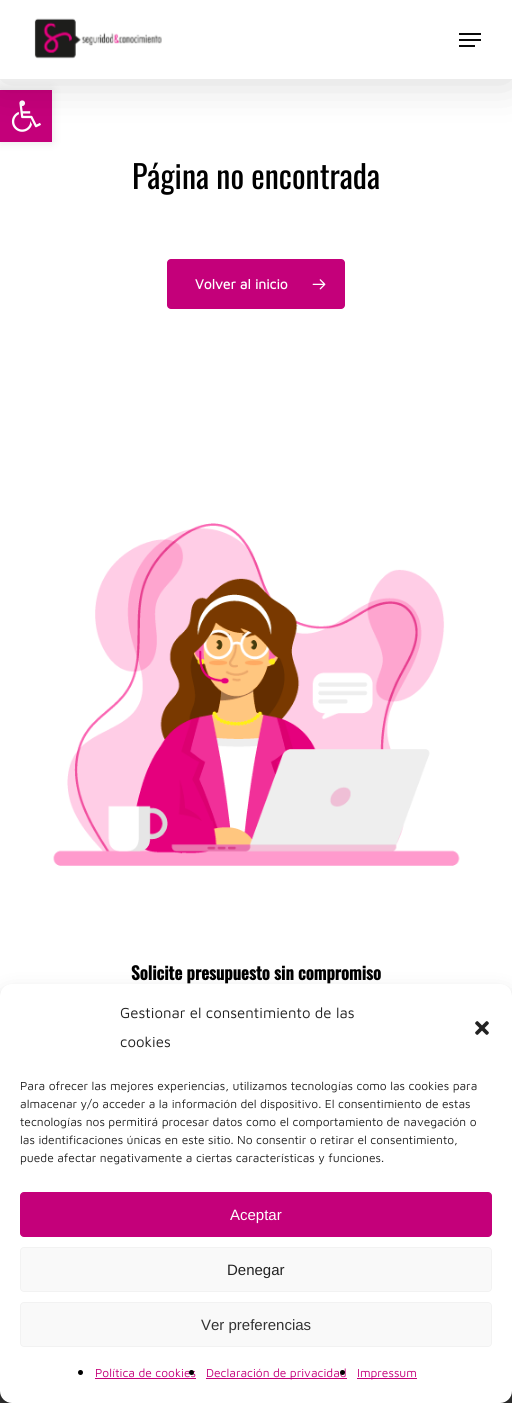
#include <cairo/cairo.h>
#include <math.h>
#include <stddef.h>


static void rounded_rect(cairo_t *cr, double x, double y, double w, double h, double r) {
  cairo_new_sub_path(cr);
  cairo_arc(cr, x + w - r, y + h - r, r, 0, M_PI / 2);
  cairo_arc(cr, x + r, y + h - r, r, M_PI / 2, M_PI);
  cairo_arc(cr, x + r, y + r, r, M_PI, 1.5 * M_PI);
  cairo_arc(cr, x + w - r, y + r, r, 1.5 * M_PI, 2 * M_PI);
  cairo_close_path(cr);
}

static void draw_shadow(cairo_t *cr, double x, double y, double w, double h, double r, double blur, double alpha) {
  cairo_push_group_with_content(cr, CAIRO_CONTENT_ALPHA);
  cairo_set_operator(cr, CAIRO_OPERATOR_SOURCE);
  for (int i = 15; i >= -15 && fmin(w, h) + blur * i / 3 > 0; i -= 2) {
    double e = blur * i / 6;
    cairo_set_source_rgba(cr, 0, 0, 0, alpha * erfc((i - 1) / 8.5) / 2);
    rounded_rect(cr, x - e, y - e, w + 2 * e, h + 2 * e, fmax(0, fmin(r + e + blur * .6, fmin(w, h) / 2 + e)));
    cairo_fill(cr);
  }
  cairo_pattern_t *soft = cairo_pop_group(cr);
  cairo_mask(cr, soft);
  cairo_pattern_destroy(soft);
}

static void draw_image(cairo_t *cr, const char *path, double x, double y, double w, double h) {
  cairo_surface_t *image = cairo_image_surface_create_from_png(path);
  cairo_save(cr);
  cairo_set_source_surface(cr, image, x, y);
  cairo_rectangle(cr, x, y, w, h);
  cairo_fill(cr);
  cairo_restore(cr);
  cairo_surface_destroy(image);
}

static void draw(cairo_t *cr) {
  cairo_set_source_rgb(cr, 1, 1, 1);
  cairo_paint(cr);
  cairo_set_source_rgb(cr, 0, 0, 0);
  draw_shadow(cr, 0, 90, 52, 52, 0, 5, 0.1);
  cairo_set_source_rgb(cr, 196 / 255.0, 0, 122 / 255.0);
  cairo_rectangle(cr, 0, 90, 52, 52);
  cairo_fill(cr);
  draw_image(cr, "images/1.png", 11, 100, 30, 32);
  cairo_set_source_rgb(cr, 0, 0, 0);
  draw_shadow(cr, 0, 3, 512, 79, 0, 22.5, 0.15);
  cairo_set_source_rgb(cr, 1, 1, 1);
  cairo_rectangle(cr, 0, 0, 512, 79);
  cairo_fill(cr);
  draw_image(cr, "images/2.png", 34, 18, 128, 41);
  cairo_set_source_rgb(cr, 10 / 255.0, 10 / 255.0, 10 / 255.0);
  cairo_rectangle(cr, 459, 33, 22, 2);
  cairo_fill(cr);
  cairo_rectangle(cr, 459, 45, 16, 2);
  cairo_fill(cr);
  cairo_rectangle(cr, 459, 39, 22, 2);
  cairo_fill(cr);
  cairo_set_source_rgb(cr, 196 / 255.0, 0, 122 / 255.0);
  rounded_rect(cr, 167, 259, 178, 50, 4);
  cairo_fill(cr);
  draw_image(cr, "images/3.png", 312, 279, 14, 11);
  draw_image(cr, "images/4.png", 53, 523, 407, 343);
  cairo_set_source_rgb(cr, 55 / 255.0, 55 / 255.0, 55 / 255.0);
  cairo_rectangle(cr, 0, 1391, 512, 12);
  cairo_fill(cr);
  cairo_set_source_rgb(cr, 0, 0, 0);
  draw_shadow(cr, 0, 990, 512, 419, 12, 3, 0.23);
  draw_shadow(cr, 0, 994, 512, 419, 12, 10, 0.19);
  cairo_set_source_rgb(cr, 1, 1, 1);
  rounded_rect(cr, 0, 984, 512, 419, 12);
  cairo_fill(cr);
  draw_image(cr, "images/5.png", 475, 1021, 14, 14);
  cairo_set_source_rgb(cr, 196 / 255.0, 0, 122 / 255.0);
  rounded_rect(cr, 20.5, 1192.5, 471, 44, 3.5);
  cairo_fill_preserve(cr);
  cairo_set_line_width(cr, 1);
  cairo_stroke(cr);
  cairo_set_source_rgb(cr, 249 / 255.0, 249 / 255.0, 249 / 255.0);
  rounded_rect(cr, 20.5, 1247.5, 471, 44, 3.5);
  cairo_fill_preserve(cr);
  cairo_set_source_rgb(cr, 242 / 255.0, 242 / 255.0, 242 / 255.0);
  cairo_stroke(cr);
  cairo_set_source_rgb(cr, 249 / 255.0, 249 / 255.0, 249 / 255.0);
  rounded_rect(cr, 20.5, 1302.5, 471, 44, 3.5);
  cairo_fill_preserve(cr);
  cairo_set_source_rgb(cr, 242 / 255.0, 242 / 255.0, 242 / 255.0);
  cairo_stroke(cr);
  cairo_set_source_rgb(cr, 0, 0, 0);
  cairo_arc(cr, 80.5, 1372.5, 2.5, 0, 2 * M_PI);
  cairo_fill(cr);
  cairo_set_source_rgb(cr, 196 / 255.0, 0, 122 / 255.0);
  cairo_rectangle(cr, 95, 1378, 101, 1);
  cairo_fill(cr);
  cairo_rectangle(cr, 206, 1378, 141, 1);
  cairo_fill(cr);
  cairo_rectangle(cr, 357, 1378, 60, 1);
  cairo_fill(cr);
  cairo_select_font_face(cr, "Oswald", CAIRO_FONT_SLANT_NORMAL, CAIRO_FONT_WEIGHT_NORMAL);
  cairo_set_font_size(cr, 32);
  cairo_set_source_rgb(cr, 0, 0, 0);
  cairo_move_to(cr, 132, 189);
  cairo_show_text(cr, "Página no encontrada");
  cairo_select_font_face(cr, "Maven Pro", CAIRO_FONT_SLANT_NORMAL, CAIRO_FONT_WEIGHT_BOLD);
  cairo_set_font_size(cr, 14);
  cairo_set_source_rgb(cr, 1, 1, 1);
  cairo_move_to(cr, 195, 289);
  cairo_show_text(cr, "Volver al inicio");
  cairo_select_font_face(cr, "Oswald", CAIRO_FONT_SLANT_NORMAL, CAIRO_FONT_WEIGHT_BOLD);
  cairo_set_font_size(cr, 17.6);
  cairo_set_source_rgb(cr, 0, 0, 0);
  cairo_move_to(cr, 131, 980);
  cairo_show_text(cr, "Solicite presupuesto sin compromiso");
  cairo_select_font_face(cr, "Maven Pro", CAIRO_FONT_SLANT_NORMAL, CAIRO_FONT_WEIGHT_NORMAL);
  cairo_set_font_size(cr, 15);
  cairo_set_source_rgb(cr, 34 / 255.0, 34 / 255.0, 34 / 255.0);
  cairo_move_to(cr, 120, 1018);
  cairo_show_text(cr, "Gestionar el consentimiento de las");
  cairo_move_to(cr, 120, 1047);
  cairo_show_text(cr, "cookies");
  cairo_set_font_size(cr, 12);
  cairo_move_to(cr, 20, 1090);
  cairo_show_text(cr, "Para ofrecer las mejores experiencias, utilizamos tecnologías como las cookies para");
  cairo_move_to(cr, 20, 1108);
  cairo_show_text(cr, "almacenar y/o acceder a la información del dispositivo. El consentimiento de estas");
  cairo_move_to(cr, 20, 1126);
  cairo_show_text(cr, "tecnologías nos permitirá procesar datos como el comportamiento de navegación o");
  cairo_move_to(cr, 20, 1144);
  cairo_show_text(cr, "las identificaciones únicas en este sitio. No consentir o retirar el consentimiento,");
  cairo_move_to(cr, 20, 1162);
  cairo_show_text(cr, "puede afectar negativamente a ciertas características y funciones.");
  cairo_select_font_face(cr, "Liberation Sans", CAIRO_FONT_SLANT_NORMAL, CAIRO_FONT_WEIGHT_NORMAL);
  cairo_set_font_size(cr, 15);
  cairo_set_source_rgb(cr, 1, 1, 1);
  cairo_move_to(cr, 230, 1220);
  cairo_show_text(cr, "Aceptar");
  cairo_set_source_rgb(cr, 34 / 255.0, 34 / 255.0, 34 / 255.0);
  cairo_move_to(cr, 227, 1275);
  cairo_show_text(cr, "Denegar");
  cairo_set_source_rgb(cr, 51 / 255.0, 51 / 255.0, 51 / 255.0);
  cairo_move_to(cr, 201, 1330);
  cairo_show_text(cr, "Ver preferencias");
  cairo_select_font_face(cr, "Maven Pro", CAIRO_FONT_SLANT_NORMAL, CAIRO_FONT_WEIGHT_NORMAL);
  cairo_set_font_size(cr, 12);
  cairo_set_source_rgb(cr, 196 / 255.0, 0, 122 / 255.0);
  cairo_move_to(cr, 95, 1377);
  cairo_show_text(cr, "Política de cookies");
  cairo_set_source_rgb(cr, 0, 0, 0);
  cairo_new_path(cr);
  cairo_arc(cr, 191.5, 1372.5, 2.5, 0, 2 * M_PI);
  cairo_fill(cr);
  cairo_set_source_rgb(cr, 196 / 255.0, 0, 122 / 255.0);
  cairo_move_to(cr, 206, 1377);
  cairo_show_text(cr, "Declaración de privacidad");
  cairo_set_source_rgb(cr, 0, 0, 0);
  cairo_new_path(cr);
  cairo_arc(cr, 342.5, 1372.5, 2.5, 0, 2 * M_PI);
  cairo_fill(cr);
  cairo_set_source_rgb(cr, 196 / 255.0, 0, 122 / 255.0);
  cairo_move_to(cr, 357, 1377);
  cairo_show_text(cr, "Impressum");
}

int main(void) {
  cairo_surface_t *surface = cairo_image_surface_create(CAIRO_FORMAT_RGB24, 512, 1403);
  cairo_t *cr = cairo_create(surface);
  cairo_font_options_t *options = cairo_font_options_create();
  cairo_font_options_set_hint_metrics(options, CAIRO_HINT_METRICS_OFF);
  cairo_font_options_set_hint_style(options, CAIRO_HINT_STYLE_NONE);
  cairo_set_font_options(cr, options);
  cairo_set_miter_limit(cr, 4);
  draw(cr);
  cairo_surface_write_to_png(surface, "out.png");
  cairo_font_options_destroy(options);
  cairo_destroy(cr);
  cairo_surface_destroy(surface);
  return 0;
}
